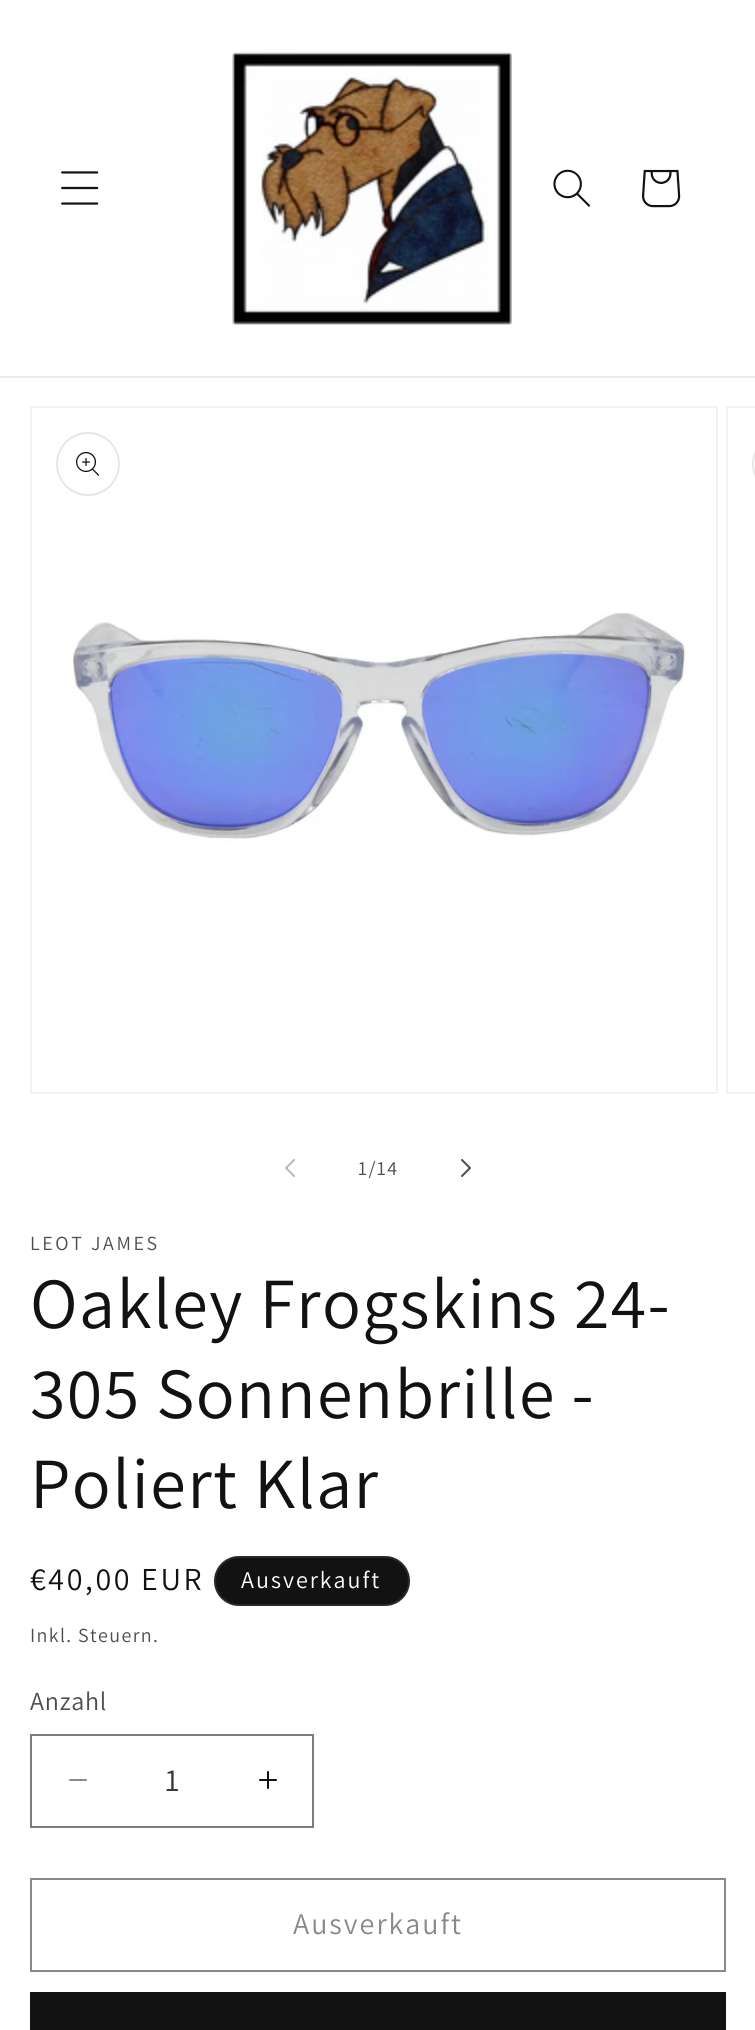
#include <cairo/cairo.h>
#include <math.h>
#include <stddef.h>


static void draw_spaced(cairo_t *cr, double x, double y, const char *s, double letter, double word) {
  cairo_move_to(cr, x, y);
  while (*s) {
    char ch[5] = {0};
    int n = 0;
    do ch[n++] = *s++; while ((*s & 0xC0) == 0x80);
    cairo_show_text(cr, ch);
    cairo_rel_move_to(cr, letter + word * (*ch == ' '), 0);
  }
}

static void rounded_rect(cairo_t *cr, double x, double y, double w, double h, double r) {
  cairo_new_sub_path(cr);
  cairo_arc(cr, x + w - r, y + h - r, r, 0, M_PI / 2);
  cairo_arc(cr, x + r, y + h - r, r, M_PI / 2, M_PI);
  cairo_arc(cr, x + r, y + r, r, M_PI, 1.5 * M_PI);
  cairo_arc(cr, x + w - r, y + r, r, 1.5 * M_PI, 2 * M_PI);
  cairo_close_path(cr);
}

static void draw_image(cairo_t *cr, const char *path, double x, double y, double w, double h) {
  cairo_surface_t *image = cairo_image_surface_create_from_png(path);
  cairo_save(cr);
  cairo_set_source_surface(cr, image, x, y);
  cairo_rectangle(cr, x, y, w, h);
  cairo_fill(cr);
  cairo_restore(cr);
  cairo_surface_destroy(image);
}

static void draw(cairo_t *cr) {
  cairo_set_source_rgb(cr, 1, 1, 1);
  cairo_paint(cr);
  cairo_set_source_rgb(cr, 236 / 255.0, 236 / 255.0, 236 / 255.0);
  cairo_rectangle(cr, 0, 376, 755, 2);
  cairo_fill(cr);
  draw_image(cr, "images/1.png", 61, 171, 38, 34);
  draw_image(cr, "images/2.png", 232, 51, 280, 274);
  draw_image(cr, "images/3.png", 553, 169, 37, 38);
  draw_image(cr, "images/4.png", 642, 169, 39, 39);
  cairo_rectangle(cr, 31, 407, 686, 686);
  cairo_set_source_rgb(cr, 243 / 255.0, 243 / 255.0, 243 / 255.0);
  cairo_stroke(cr);
  cairo_arc(cr, 88, 464, 31, 0, 2 * M_PI);
  cairo_set_source_rgb(cr, 231 / 255.0, 231 / 255.0, 231 / 255.0);
  cairo_stroke(cr);
  draw_image(cr, "images/5.png", 76, 452, 24, 24);
  draw_image(cr, "images/6.png", 73, 612, 613, 229);
  cairo_rectangle(cr, 727, 407, 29, 686);
  cairo_set_source_rgb(cr, 243 / 255.0, 243 / 255.0, 243 / 255.0);
  cairo_stroke(cr);
  rounded_rect(cr, 753, 433, 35, 62, 31);
  cairo_set_source_rgb(cr, 231 / 255.0, 231 / 255.0, 231 / 255.0);
  cairo_stroke(cr);
  draw_image(cr, "images/7.png", 285, 1159, 10, 18);
  draw_image(cr, "images/8.png", 461, 1159, 10, 18);
  cairo_set_source_rgb(cr, 18 / 255.0, 18 / 255.0, 18 / 255.0);
  rounded_rect(cr, 214, 1556, 196, 50, 25);
  cairo_fill(cr);
  rounded_rect(cr, 215, 1557, 194, 48, 24);
  cairo_set_source_rgba(cr, 1, 1, 1, 0.1);
  cairo_stroke(cr);
  draw_image(cr, "images/9.png", 69, 1779, 18, 2);
  draw_image(cr, "images/10.png", 259, 1771, 18, 18);
  cairo_rectangle(cr, 31, 1735, 282, 92);
  cairo_set_source_rgb(cr, 125 / 255.0, 125 / 255.0, 125 / 255.0);
  cairo_stroke(cr);
  cairo_rectangle(cr, 31, 1879, 694, 92);
  cairo_set_source_rgb(cr, 137 / 255.0, 137 / 255.0, 137 / 255.0);
  cairo_stroke(cr);
  cairo_set_source_rgb(cr, 18 / 255.0, 18 / 255.0, 18 / 255.0);
  cairo_rectangle(cr, 30, 1992, 696, 38);
  cairo_fill(cr);
  cairo_select_font_face(cr, "Assistant", CAIRO_FONT_SLANT_NORMAL, CAIRO_FONT_WEIGHT_NORMAL);
  cairo_set_font_size(cr, 20);
  cairo_set_source_rgb(cr, 77 / 255.0, 77 / 255.0, 77 / 255.0);
  draw_spaced(cr, 358, 1175, "1/14", 1.4, 0);
  draw_spaced(cr, 30, 1250, "LEOT JAMES", 2.6, 0);
  cairo_set_font_size(cr, 72);
  cairo_set_source_rgb(cr, 18 / 255.0, 18 / 255.0, 18 / 255.0);
  draw_spaced(cr, 30, 1328, "Oakley Frogskins 24-", 1.4, 0);
  draw_spaced(cr, 30, 1418, "305 Sonnenbrille -", 1.4, 0);
  draw_spaced(cr, 30, 1508, "Poliert Klar", 1.4, 0);
  cairo_set_font_size(cr, 32);
  draw_spaced(cr, 30, 1590, "€40,00 EUR", 2.6, 0);
  cairo_set_font_size(cr, 24);
  cairo_set_source_rgb(cr, 1, 1, 1);
  draw_spaced(cr, 241, 1588, "Ausverkauft", 2, 0);
  cairo_set_font_size(cr, 20);
  cairo_set_source_rgb(cr, 77 / 255.0, 77 / 255.0, 77 / 255.0);
  draw_spaced(cr, 30, 1642, "Inkl. Steuern.", 1.4, 0);
  cairo_set_font_size(cr, 26);
  draw_spaced(cr, 30, 1710, "Anzahl", 0.75, 0);
  cairo_set_font_size(cr, 32);
  cairo_set_source_rgb(cr, 54 / 255.0, 54 / 255.0, 54 / 255.0);
  cairo_move_to(cr, 165, 1791);
  cairo_show_text(cr, "1");
  cairo_set_font_size(cr, 30);
  cairo_set_source_rgb(cr, 137 / 255.0, 137 / 255.0, 137 / 255.0);
  draw_spaced(cr, 293, 1934, "Ausverkauft", 2, 0);
}

int main(void) {
  cairo_surface_t *surface = cairo_image_surface_create(CAIRO_FORMAT_RGB24, 755, 2030);
  cairo_t *cr = cairo_create(surface);
  cairo_font_options_t *options = cairo_font_options_create();
  cairo_font_options_set_hint_metrics(options, CAIRO_HINT_METRICS_OFF);
  cairo_font_options_set_hint_style(options, CAIRO_HINT_STYLE_NONE);
  cairo_set_font_options(cr, options);
  cairo_set_miter_limit(cr, 4);
  draw(cr);
  cairo_surface_write_to_png(surface, "out.png");
  cairo_font_options_destroy(options);
  cairo_destroy(cr);
  cairo_surface_destroy(surface);
  return 0;
}
